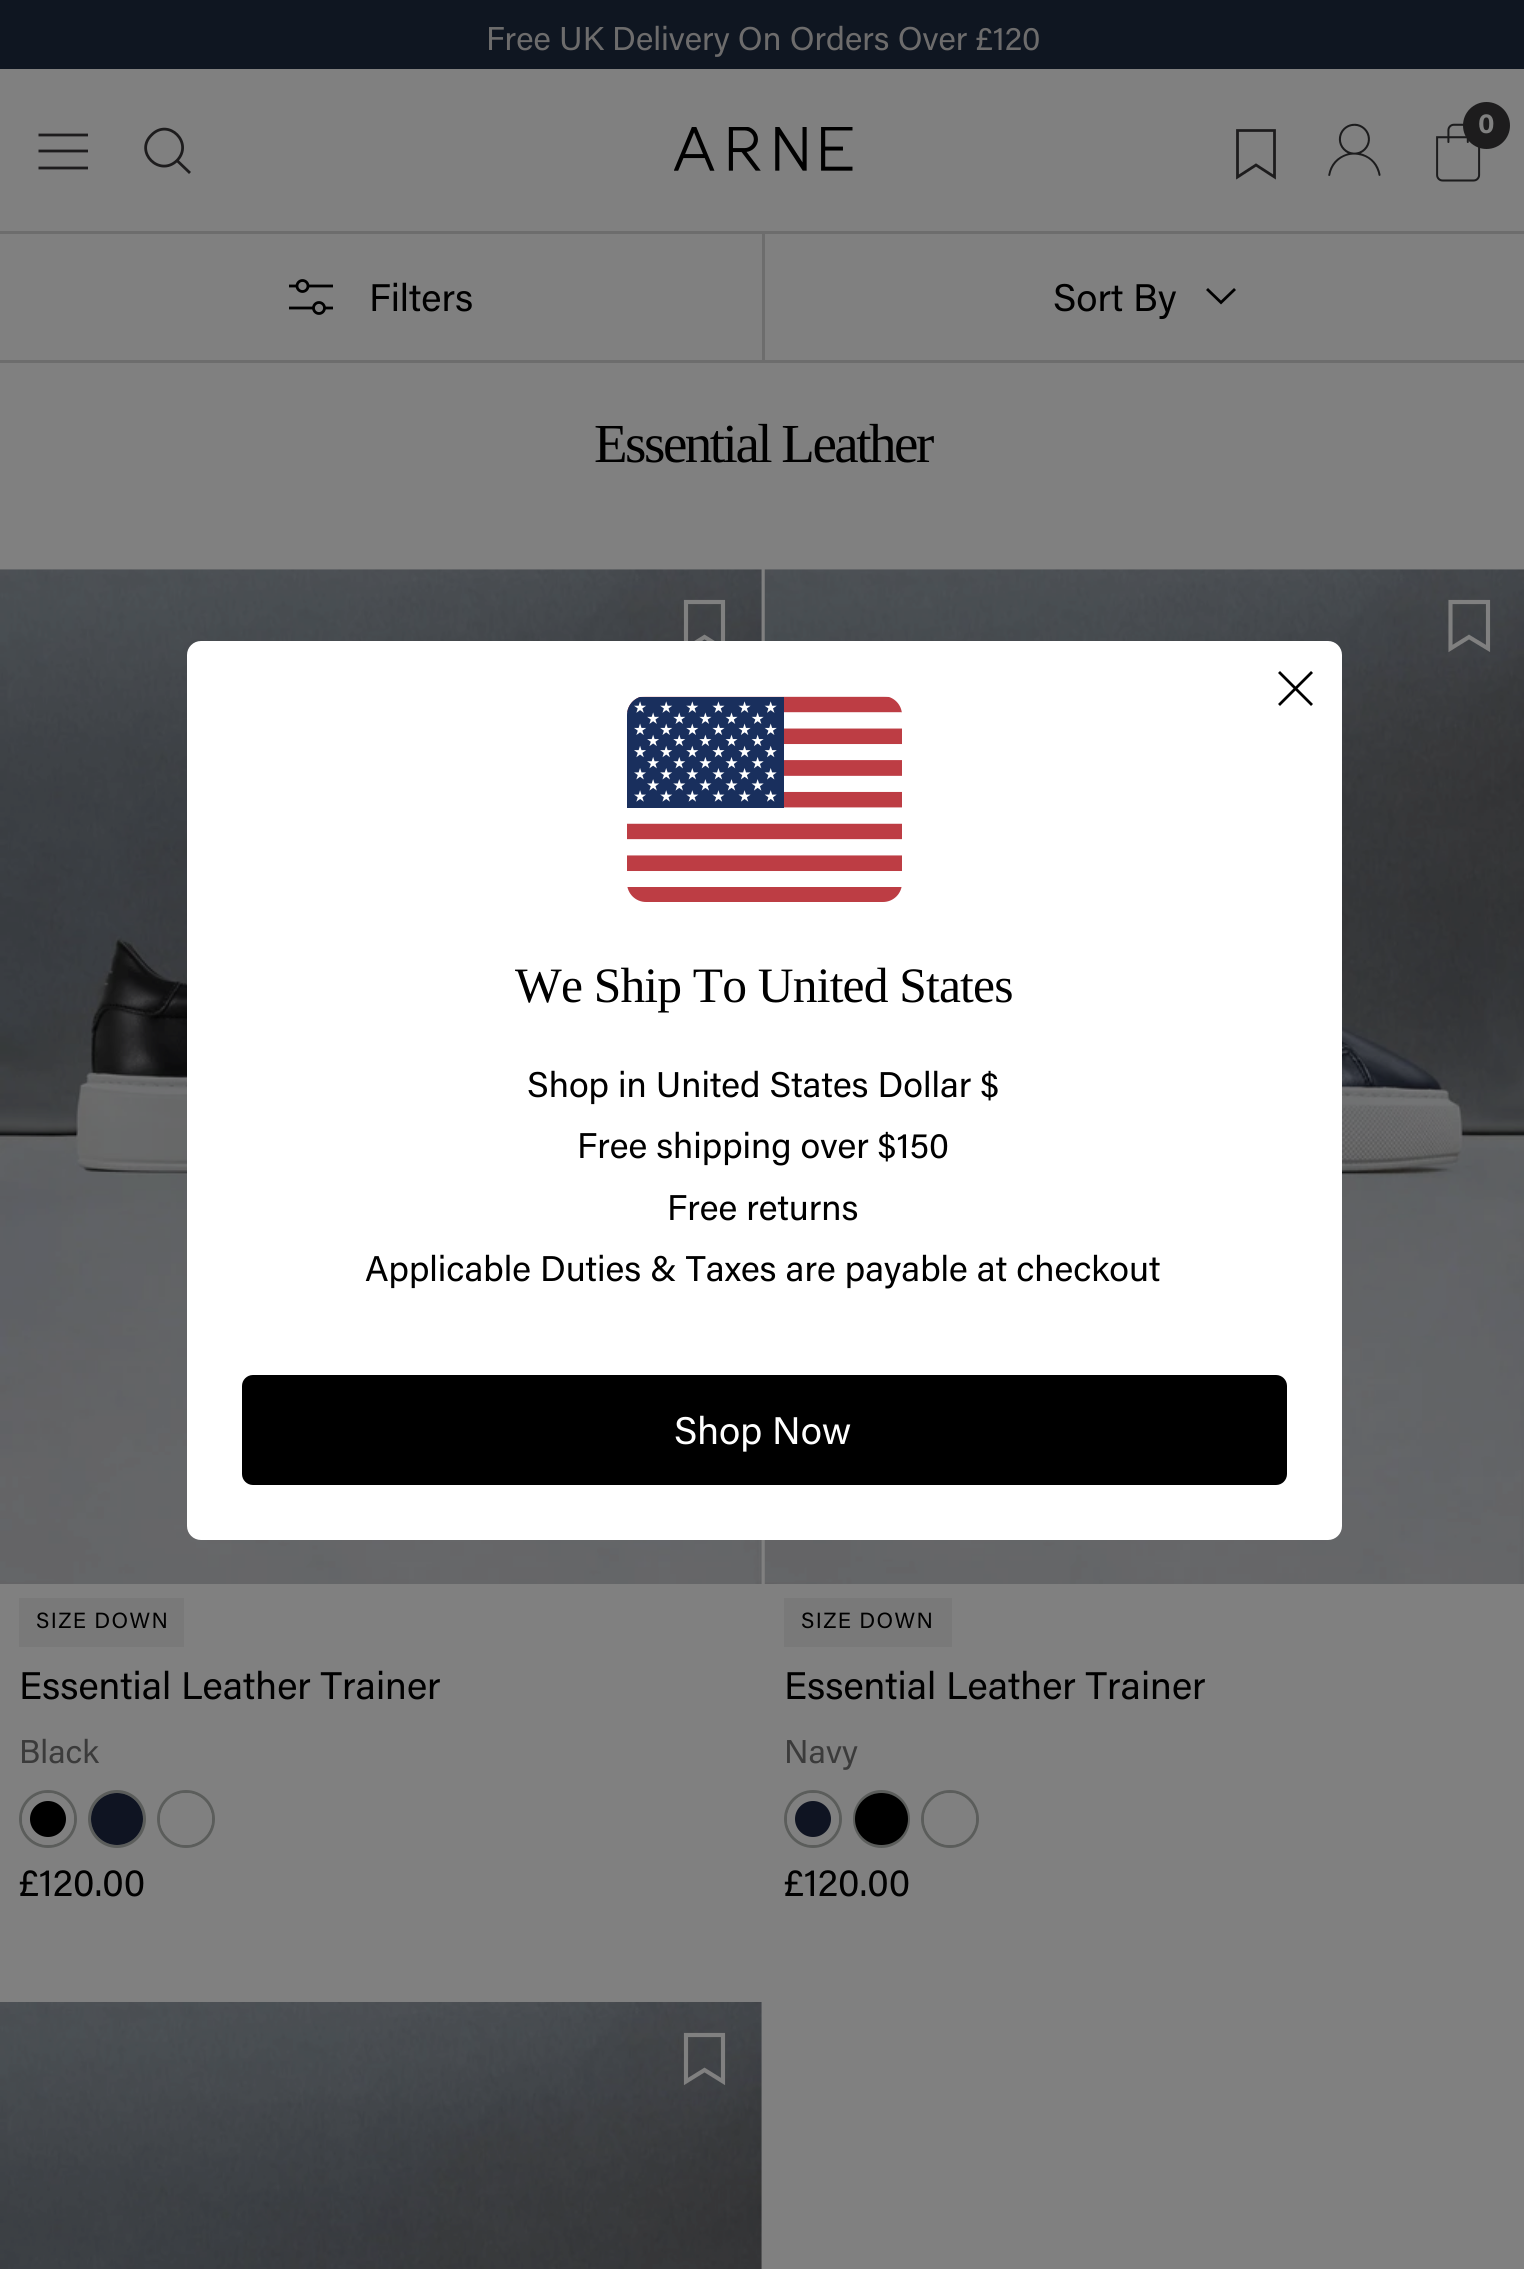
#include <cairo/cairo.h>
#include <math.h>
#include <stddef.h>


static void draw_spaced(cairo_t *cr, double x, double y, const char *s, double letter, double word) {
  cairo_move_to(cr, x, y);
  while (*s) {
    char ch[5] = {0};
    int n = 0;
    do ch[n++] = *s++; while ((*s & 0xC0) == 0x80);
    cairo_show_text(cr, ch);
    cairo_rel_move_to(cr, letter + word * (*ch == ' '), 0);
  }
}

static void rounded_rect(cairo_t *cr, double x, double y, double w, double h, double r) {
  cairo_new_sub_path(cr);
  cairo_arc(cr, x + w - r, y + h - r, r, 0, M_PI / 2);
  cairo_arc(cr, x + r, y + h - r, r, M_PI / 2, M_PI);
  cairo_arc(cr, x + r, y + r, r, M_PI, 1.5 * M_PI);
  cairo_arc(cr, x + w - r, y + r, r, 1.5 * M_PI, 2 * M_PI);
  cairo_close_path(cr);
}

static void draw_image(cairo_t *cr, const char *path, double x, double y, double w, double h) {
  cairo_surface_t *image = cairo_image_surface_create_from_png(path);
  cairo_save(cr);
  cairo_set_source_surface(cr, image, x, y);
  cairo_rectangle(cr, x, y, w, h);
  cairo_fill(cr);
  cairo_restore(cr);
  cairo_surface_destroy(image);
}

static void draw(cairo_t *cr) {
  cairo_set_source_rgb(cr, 128 / 255.0, 128 / 255.0, 128 / 255.0);
  cairo_paint(cr);
  cairo_set_source_rgb(cr, 15 / 255.0, 22 / 255.0, 33 / 255.0);
  cairo_rectangle(cr, 0, 0, 1524, 69);
  cairo_fill(cr);
  cairo_new_path(cr);
  cairo_move_to(cr, 1256, 165);
  cairo_line_to(cr, 1274.5, 177);
  cairo_line_to(cr, 1274.5, 130.5);
  cairo_line_to(cr, 1237.5, 130.5);
  cairo_line_to(cr, 1237.5, 177);
  cairo_close_path(cr);
  cairo_set_source_rgb(cr, 29 / 255.0, 28 / 255.0, 29 / 255.0);
  cairo_set_line_width(cr, 2.8);
  cairo_set_line_cap(cr, CAIRO_LINE_CAP_SQUARE);
  cairo_stroke(cr);
  draw_image(cr, "images/1.png", 1328, 123, 53, 53);
  draw_image(cr, "images/2.png", 1436, 123, 45, 59);
  cairo_arc(cr, 1486.5, 125.5, 23.5, 0, 2 * M_PI);
  cairo_fill(cr);
  cairo_new_path(cr);
  cairo_move_to(cr, 38.5, 135);
  cairo_line_to(cr, 88, 135);
  cairo_move_to(cr, 38.5, 168);
  cairo_line_to(cr, 88, 168);
  cairo_close_path(cr);
  cairo_move_to(cr, 38.5, 151);
  cairo_line_to(cr, 88, 151);
  cairo_close_path(cr);
  cairo_set_line_cap(cr, CAIRO_LINE_CAP_BUTT);
  cairo_stroke(cr);
  cairo_new_path(cr);
  cairo_move_to(cr, 177, 160.5);
  cairo_curve_to(cr, 194, 143, 168.5, 117.5, 151.5, 135);
  cairo_curve_to(cr, 134, 152, 159.5, 177.5, 177, 160.5);
  cairo_close_path(cr);
  cairo_move_to(cr, 177, 160.5);
  cairo_line_to(cr, 190, 173);
  cairo_stroke(cr);
  draw_image(cr, "images/3.png", 674, 127, 179, 44);
  cairo_set_source_rgb(cr, 109 / 255.0, 109 / 255.0, 109 / 255.0);
  cairo_rectangle(cr, 0, 231, 1524, 3);
  cairo_fill(cr);
  cairo_rectangle(cr, 0, 360, 1524, 3);
  cairo_fill(cr);
  cairo_new_path(cr);
  cairo_move_to(cr, 289, 286);
  cairo_line_to(cr, 333, 286);
  cairo_move_to(cr, 289, 308);
  cairo_line_to(cr, 333, 308);
  cairo_set_source_rgb(cr, 0, 0, 0);
  cairo_stroke(cr);
  cairo_set_source_rgb(cr, 128 / 255.0, 128 / 255.0, 128 / 255.0);
  cairo_arc(cr, 302.5, 286, 5.5, 0, 2 * M_PI);
  cairo_fill_preserve(cr);
  cairo_set_source_rgb(cr, 0, 0, 0);
  cairo_stroke(cr);
  cairo_set_source_rgb(cr, 128 / 255.0, 128 / 255.0, 128 / 255.0);
  cairo_arc(cr, 319, 308, 5.5, 0, 2 * M_PI);
  cairo_fill_preserve(cr);
  cairo_set_source_rgb(cr, 0, 0, 0);
  cairo_stroke(cr);
  cairo_set_source_rgb(cr, 109 / 255.0, 109 / 255.0, 109 / 255.0);
  cairo_rectangle(cr, 762, 231, 3, 132);
  cairo_fill(cr);
  cairo_new_path(cr);
  cairo_move_to(cr, 1207, 289);
  cairo_line_to(cr, 1221, 302.5);
  cairo_line_to(cr, 1235, 289);
  cairo_set_source_rgb(cr, 0, 0, 0);
  cairo_stroke(cr);
  draw_image(cr, "images/4.png", 0, 569, 762, 1015);
  cairo_new_path(cr);
  cairo_move_to(cr, 704.5, 637);
  cairo_line_to(cr, 723, 648.5);
  cairo_line_to(cr, 723, 602);
  cairo_line_to(cr, 686, 602);
  cairo_line_to(cr, 686, 648.5);
  cairo_close_path(cr);
  cairo_set_source_rgb(cr, 128 / 255.0, 128 / 255.0, 128 / 255.0);
  cairo_set_line_width(cr, 4.1);
  cairo_set_line_cap(cr, CAIRO_LINE_CAP_SQUARE);
  cairo_stroke(cr);
  cairo_set_source_rgb(cr, 121 / 255.0, 121 / 255.0, 121 / 255.0);
  cairo_rectangle(cr, 19, 1598, 165, 49);
  cairo_fill(cr);
  cairo_arc(cr, 48, 1819, 27.5, 0, 2 * M_PI);
  cairo_set_source_rgb(cr, 91 / 255.0, 93 / 255.0, 91 / 255.0);
  cairo_set_line_width(cr, 3);
  cairo_set_line_cap(cr, CAIRO_LINE_CAP_BUTT);
  cairo_stroke(cr);
  cairo_set_source_rgb(cr, 0, 0, 0);
  cairo_arc(cr, 48, 1819, 22, 0, 2 * M_PI);
  cairo_fill_preserve(cr);
  cairo_set_source_rgb(cr, 128 / 255.0, 128 / 255.0, 128 / 255.0);
  cairo_set_line_width(cr, 8);
  cairo_stroke(cr);
  cairo_arc(cr, 117, 1819, 27.5, 0, 2 * M_PI);
  cairo_set_source_rgb(cr, 91 / 255.0, 93 / 255.0, 91 / 255.0);
  cairo_set_line_width(cr, 3);
  cairo_stroke(cr);
  cairo_set_source_rgb(cr, 15 / 255.0, 20 / 255.0, 34 / 255.0);
  cairo_arc(cr, 117, 1819, 26, 0, 2 * M_PI);
  cairo_fill(cr);
  cairo_arc(cr, 186, 1819, 27.5, 0, 2 * M_PI);
  cairo_set_source_rgb(cr, 91 / 255.0, 93 / 255.0, 91 / 255.0);
  cairo_stroke(cr);
  cairo_set_source_rgb(cr, 128 / 255.0, 128 / 255.0, 128 / 255.0);
  cairo_arc(cr, 186, 1819, 26, 0, 2 * M_PI);
  cairo_fill(cr);
  draw_image(cr, "images/5.png", 764, 569, 760, 1015);
  cairo_new_path(cr);
  cairo_move_to(cr, 1469, 637);
  cairo_line_to(cr, 1488, 648.5);
  cairo_line_to(cr, 1488, 602);
  cairo_line_to(cr, 1450.5, 602);
  cairo_line_to(cr, 1450.5, 648.5);
  cairo_close_path(cr);
  cairo_set_line_width(cr, 4.1);
  cairo_set_line_cap(cr, CAIRO_LINE_CAP_SQUARE);
  cairo_stroke(cr);
  cairo_set_source_rgb(cr, 121 / 255.0, 121 / 255.0, 121 / 255.0);
  cairo_rectangle(cr, 784, 1598, 168, 49);
  cairo_fill(cr);
  cairo_arc(cr, 813, 1819, 27.5, 0, 2 * M_PI);
  cairo_set_source_rgb(cr, 91 / 255.0, 93 / 255.0, 91 / 255.0);
  cairo_set_line_width(cr, 3);
  cairo_set_line_cap(cr, CAIRO_LINE_CAP_BUTT);
  cairo_stroke(cr);
  cairo_set_source_rgb(cr, 15 / 255.0, 20 / 255.0, 34 / 255.0);
  cairo_arc(cr, 813, 1819, 22, 0, 2 * M_PI);
  cairo_fill_preserve(cr);
  cairo_set_source_rgb(cr, 128 / 255.0, 128 / 255.0, 128 / 255.0);
  cairo_set_line_width(cr, 8);
  cairo_stroke(cr);
  rounded_rect(cr, 854.5, 1791.5, 54, 55, 27);
  cairo_set_source_rgb(cr, 91 / 255.0, 93 / 255.0, 91 / 255.0);
  cairo_set_line_width(cr, 3);
  cairo_stroke(cr);
  cairo_set_source_rgb(cr, 0, 0, 0);
  rounded_rect(cr, 855, 1793, 53, 52, 26);
  cairo_fill(cr);
  cairo_arc(cr, 950, 1819, 27.5, 0, 2 * M_PI);
  cairo_set_source_rgb(cr, 91 / 255.0, 93 / 255.0, 91 / 255.0);
  cairo_stroke(cr);
  cairo_set_source_rgb(cr, 128 / 255.0, 128 / 255.0, 128 / 255.0);
  cairo_arc(cr, 950, 1819, 26, 0, 2 * M_PI);
  cairo_fill(cr);
  draw_image(cr, "images/6.png", 0, 2002, 762, 267);
  cairo_new_path(cr);
  cairo_move_to(cr, 704.5, 2070);
  cairo_line_to(cr, 723, 2081.5);
  cairo_line_to(cr, 723, 2035);
  cairo_line_to(cr, 686, 2035);
  cairo_line_to(cr, 686, 2081.5);
  cairo_close_path(cr);
  cairo_set_line_width(cr, 4.1);
  cairo_set_line_cap(cr, CAIRO_LINE_CAP_SQUARE);
  cairo_stroke(cr);
  cairo_set_source_rgb(cr, 1, 1, 1);
  rounded_rect(cr, 187, 641, 1155, 899, 14);
  cairo_fill(cr);
  draw_image(cr, "images/7.png", 627, 696, 275, 206);
  cairo_new_path(cr);
  cairo_move_to(cr, 1312, 705);
  cairo_line_to(cr, 1279, 672);
  cairo_move_to(cr, 1312, 672);
  cairo_line_to(cr, 1279, 705);
  cairo_set_source_rgb(cr, 0, 0, 0);
  cairo_set_line_width(cr, 2.8);
  cairo_set_line_cap(cr, CAIRO_LINE_CAP_BUTT);
  cairo_stroke(cr);
  rounded_rect(cr, 242, 1375, 1045, 110, 11);
  cairo_fill(cr);
  cairo_select_font_face(cr, "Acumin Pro", CAIRO_FONT_SLANT_NORMAL, CAIRO_FONT_WEIGHT_NORMAL);
  cairo_set_font_size(cr, 33);
  cairo_set_source_rgb(cr, 109 / 255.0, 108 / 255.0, 108 / 255.0);
  cairo_move_to(cr, 486, 50);
  cairo_show_text(cr, "Free UK Delivery On Orders Over £120");
  cairo_select_font_face(cr, "Acumin Pro", CAIRO_FONT_SLANT_NORMAL, CAIRO_FONT_WEIGHT_BOLD);
  cairo_set_font_size(cr, 28);
  cairo_set_source_rgb(cr, 128 / 255.0, 128 / 255.0, 128 / 255.0);
  cairo_move_to(cr, 1478, 133);
  cairo_show_text(cr, "0");
  cairo_select_font_face(cr, "Acumin Pro", CAIRO_FONT_SLANT_NORMAL, CAIRO_FONT_WEIGHT_NORMAL);
  cairo_set_font_size(cr, 38.5);
  cairo_set_source_rgb(cr, 0, 0, 0);
  cairo_move_to(cr, 369, 311);
  cairo_show_text(cr, "Filters");
  cairo_move_to(cr, 1053, 311);
  cairo_show_text(cr, "Sort By");
  cairo_select_font_face(cr, "Liberation Serif", CAIRO_FONT_SLANT_NORMAL, CAIRO_FONT_WEIGHT_NORMAL);
  cairo_set_font_size(cr, 55);
  draw_spaced(cr, 594, 462, "Essential Leather", -2.5, 0);
  cairo_select_font_face(cr, "Acumin Pro", CAIRO_FONT_SLANT_NORMAL, CAIRO_FONT_WEIGHT_NORMAL);
  cairo_set_font_size(cr, 22);
  draw_spaced(cr, 36, 1628, "SIZE DOWN", 1.4, 0);
  cairo_set_font_size(cr, 38.5);
  cairo_move_to(cr, 19, 1699);
  cairo_show_text(cr, "Essential Leather Trainer");
  cairo_set_font_size(cr, 33);
  cairo_set_source_rgb(cr, 59 / 255.0, 59 / 255.0, 59 / 255.0);
  cairo_move_to(cr, 19, 1763);
  cairo_show_text(cr, "Black");
  cairo_set_font_size(cr, 38.5);
  cairo_set_source_rgb(cr, 0, 0, 0);
  cairo_move_to(cr, 19, 1896);
  cairo_show_text(cr, "£120.00");
  cairo_set_font_size(cr, 22);
  draw_spaced(cr, 801, 1628, "SIZE DOWN", 1.4, 0);
  cairo_set_font_size(cr, 38.5);
  cairo_move_to(cr, 784, 1699);
  cairo_show_text(cr, "Essential Leather Trainer");
  cairo_set_font_size(cr, 33);
  cairo_set_source_rgb(cr, 59 / 255.0, 59 / 255.0, 59 / 255.0);
  cairo_move_to(cr, 784, 1763);
  cairo_show_text(cr, "Navy");
  cairo_set_font_size(cr, 38.5);
  cairo_set_source_rgb(cr, 0, 0, 0);
  cairo_move_to(cr, 784, 1896);
  cairo_show_text(cr, "£120.00");
  cairo_select_font_face(cr, "Liberation Serif", CAIRO_FONT_SLANT_NORMAL, CAIRO_FONT_WEIGHT_NORMAL);
  cairo_set_font_size(cr, 49.5);
  draw_spaced(cr, 515, 1002, "We Ship To United States", -0.8, 0);
  cairo_select_font_face(cr, "Acumin Pro", CAIRO_FONT_SLANT_NORMAL, CAIRO_FONT_WEIGHT_NORMAL);
  cairo_set_font_size(cr, 35.75);
  cairo_move_to(cr, 527, 1097);
  cairo_show_text(cr, "Shop in United States Dollar $");
  cairo_move_to(cr, 577, 1158);
  cairo_show_text(cr, "Free shipping over $150");
  cairo_move_to(cr, 667, 1220);
  cairo_show_text(cr, "Free returns");
  cairo_move_to(cr, 365, 1281);
  cairo_show_text(cr, "Applicable Duties & Taxes are payable at checkout");
  cairo_set_font_size(cr, 38.5);
  cairo_set_source_rgb(cr, 1, 1, 1);
  cairo_move_to(cr, 674, 1444);
  cairo_show_text(cr, "Shop Now");
}

int main(void) {
  cairo_surface_t *surface = cairo_image_surface_create(CAIRO_FORMAT_RGB24, 1524, 2269);
  cairo_t *cr = cairo_create(surface);
  cairo_font_options_t *options = cairo_font_options_create();
  cairo_font_options_set_hint_metrics(options, CAIRO_HINT_METRICS_OFF);
  cairo_font_options_set_hint_style(options, CAIRO_HINT_STYLE_NONE);
  cairo_set_font_options(cr, options);
  cairo_set_miter_limit(cr, 4);
  draw(cr);
  cairo_surface_write_to_png(surface, "out.png");
  cairo_font_options_destroy(options);
  cairo_destroy(cr);
  cairo_surface_destroy(surface);
  return 0;
}
